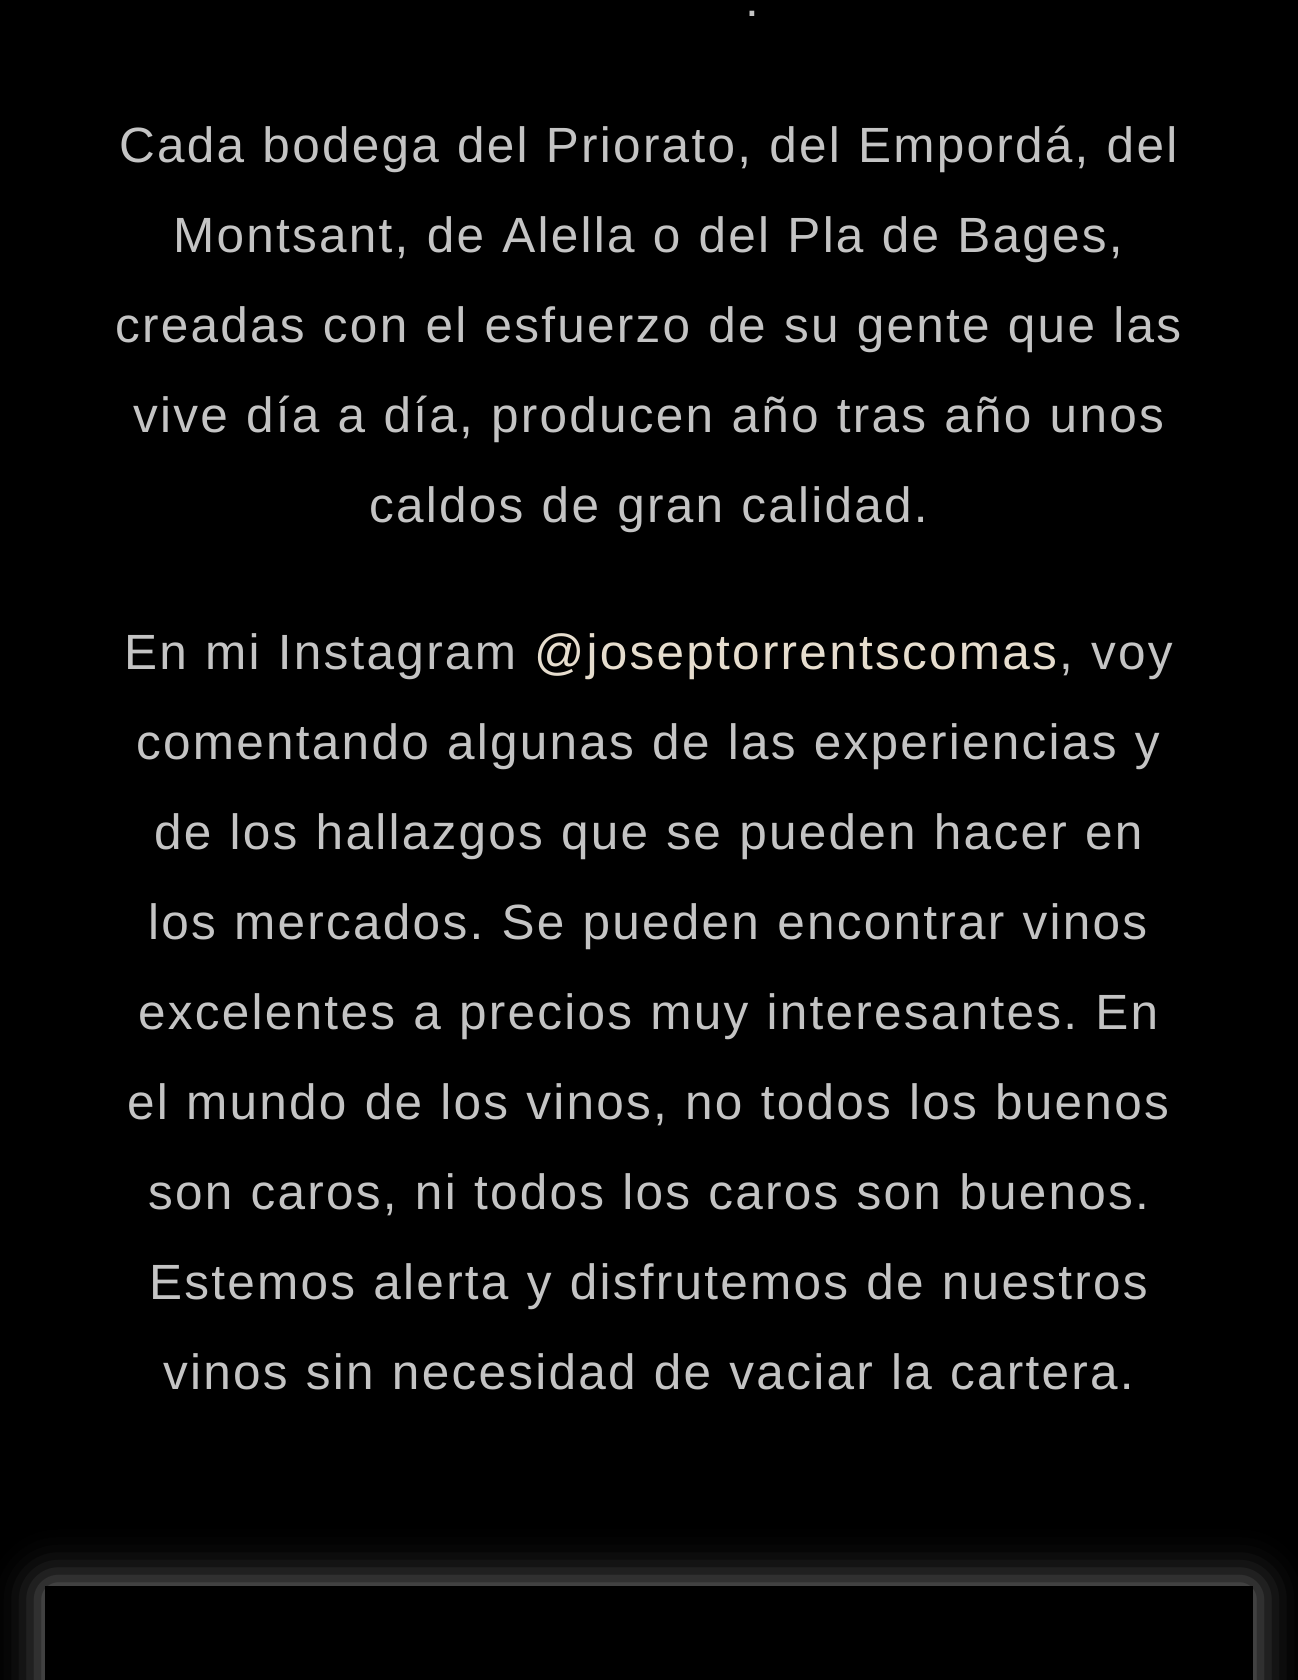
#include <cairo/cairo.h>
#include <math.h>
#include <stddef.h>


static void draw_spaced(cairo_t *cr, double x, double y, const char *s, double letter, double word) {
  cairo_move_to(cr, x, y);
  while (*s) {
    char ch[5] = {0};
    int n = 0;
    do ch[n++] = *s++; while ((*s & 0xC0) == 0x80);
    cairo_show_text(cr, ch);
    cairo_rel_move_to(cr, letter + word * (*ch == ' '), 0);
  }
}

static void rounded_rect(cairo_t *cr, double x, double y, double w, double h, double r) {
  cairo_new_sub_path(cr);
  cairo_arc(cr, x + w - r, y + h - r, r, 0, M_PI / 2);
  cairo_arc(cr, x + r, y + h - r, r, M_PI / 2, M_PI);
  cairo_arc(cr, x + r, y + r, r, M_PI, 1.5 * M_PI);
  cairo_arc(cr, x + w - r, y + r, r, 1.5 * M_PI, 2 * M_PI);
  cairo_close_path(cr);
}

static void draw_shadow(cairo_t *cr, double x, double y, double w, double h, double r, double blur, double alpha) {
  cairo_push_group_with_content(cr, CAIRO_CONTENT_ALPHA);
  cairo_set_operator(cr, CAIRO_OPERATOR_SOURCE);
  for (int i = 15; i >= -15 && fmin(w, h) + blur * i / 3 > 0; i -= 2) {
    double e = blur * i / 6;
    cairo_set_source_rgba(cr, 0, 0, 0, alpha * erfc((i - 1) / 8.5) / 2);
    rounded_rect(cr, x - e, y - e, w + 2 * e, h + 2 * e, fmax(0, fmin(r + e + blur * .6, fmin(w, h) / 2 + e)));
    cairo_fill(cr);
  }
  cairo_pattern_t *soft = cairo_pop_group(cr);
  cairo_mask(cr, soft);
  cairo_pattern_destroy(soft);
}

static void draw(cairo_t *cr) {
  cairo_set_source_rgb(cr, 0, 0, 0);
  cairo_paint(cr);
  cairo_set_source_rgb(cr, 129 / 255.0, 129 / 255.0, 129 / 255.0);
  draw_shadow(cr, 45, 1586, 1208, 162, 0, 22.5, 1);
  cairo_set_source_rgb(cr, 0, 0, 0);
  cairo_rectangle(cr, 45, 1586, 1208, 94);
  cairo_fill(cr);
  cairo_select_font_face(cr, "Liberation Sans", CAIRO_FONT_SLANT_NORMAL, CAIRO_FONT_WEIGHT_NORMAL);
  cairo_set_font_size(cr, 49.5);
  cairo_set_source_rgb(cr, 196 / 255.0, 196 / 255.0, 196 / 255.0);
  draw_spaced(cr, 745, 16, ".", 2.25, 0);
  draw_spaced(cr, 119, 162, "Cada bodega del Priorato, del Empordá, del", 2.25, 0);
  draw_spaced(cr, 173, 252, "Montsant, de Alella o del Pla de Bages,", 2.25, 0);
  draw_spaced(cr, 115, 342, "creadas con el esfuerzo de su gente que las", 2.25, 0);
  draw_spaced(cr, 133, 432, "vive día a día, producen año tras año unos", 2.25, 0);
  draw_spaced(cr, 369, 522, "caldos de gran calidad.", 2.25, 0);
  draw_spaced(cr, 124, 669, "En mi Instagram", 2.25, 0);
  cairo_set_source_rgb(cr, 230 / 255.0, 221 / 255.0, 206 / 255.0);
  draw_spaced(cr, 534, 669, "@joseptorrentscomas", 2.25, 0);
  cairo_set_source_rgb(cr, 196 / 255.0, 196 / 255.0, 196 / 255.0);
  draw_spaced(cr, 1059, 669, ", voy", 2.25, 0);
  draw_spaced(cr, 136, 759, "comentando algunas de las experiencias y", 2.25, 0);
  draw_spaced(cr, 154, 849, "de los hallazgos que se pueden hacer en", 2.25, 0);
  draw_spaced(cr, 148, 939, "los mercados. Se pueden encontrar vinos", 2.25, 0);
  draw_spaced(cr, 138, 1029, "excelentes a precios muy interesantes. En", 2.25, 0);
  draw_spaced(cr, 127, 1119, "el mundo de los vinos, no todos los buenos", 2.25, 0);
  draw_spaced(cr, 148, 1209, "son caros, ni todos los caros son buenos.", 2.25, 0);
  draw_spaced(cr, 149, 1299, "Estemos alerta y disfrutemos de nuestros", 2.25, 0);
  draw_spaced(cr, 163, 1389, "vinos sin necesidad de vaciar la cartera.", 2.25, 0);
}

int main(void) {
  cairo_surface_t *surface = cairo_image_surface_create(CAIRO_FORMAT_RGB24, 1298, 1680);
  cairo_t *cr = cairo_create(surface);
  cairo_font_options_t *options = cairo_font_options_create();
  cairo_font_options_set_hint_metrics(options, CAIRO_HINT_METRICS_OFF);
  cairo_font_options_set_hint_style(options, CAIRO_HINT_STYLE_NONE);
  cairo_set_font_options(cr, options);
  cairo_set_miter_limit(cr, 4);
  draw(cr);
  cairo_surface_write_to_png(surface, "out.png");
  cairo_font_options_destroy(options);
  cairo_destroy(cr);
  cairo_surface_destroy(surface);
  return 0;
}
